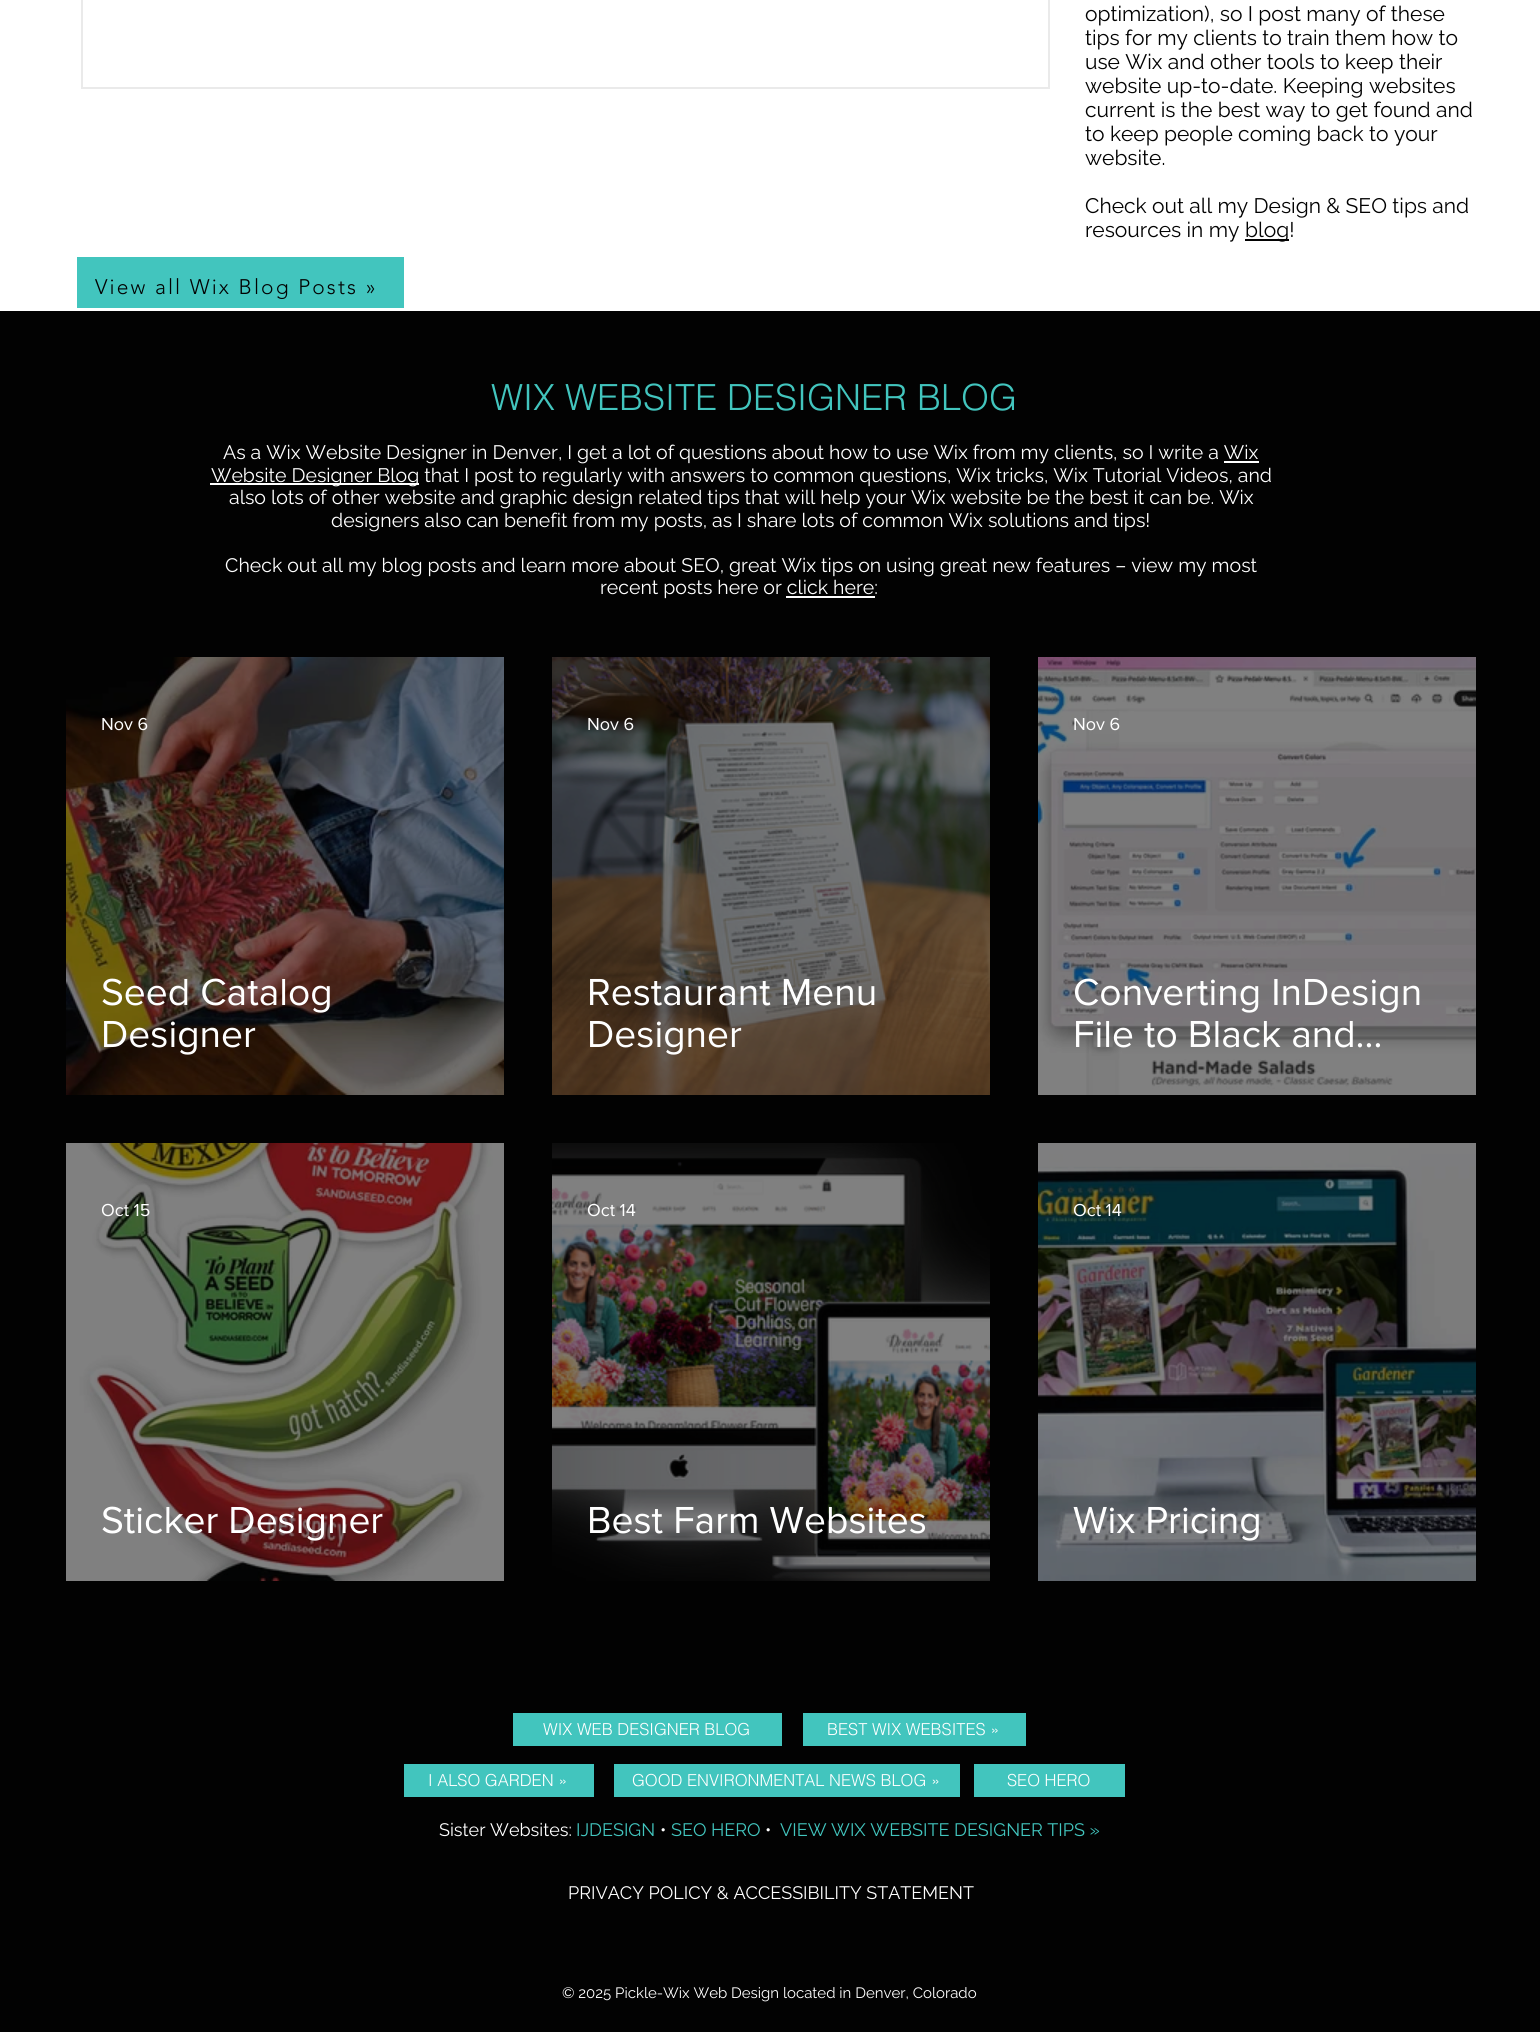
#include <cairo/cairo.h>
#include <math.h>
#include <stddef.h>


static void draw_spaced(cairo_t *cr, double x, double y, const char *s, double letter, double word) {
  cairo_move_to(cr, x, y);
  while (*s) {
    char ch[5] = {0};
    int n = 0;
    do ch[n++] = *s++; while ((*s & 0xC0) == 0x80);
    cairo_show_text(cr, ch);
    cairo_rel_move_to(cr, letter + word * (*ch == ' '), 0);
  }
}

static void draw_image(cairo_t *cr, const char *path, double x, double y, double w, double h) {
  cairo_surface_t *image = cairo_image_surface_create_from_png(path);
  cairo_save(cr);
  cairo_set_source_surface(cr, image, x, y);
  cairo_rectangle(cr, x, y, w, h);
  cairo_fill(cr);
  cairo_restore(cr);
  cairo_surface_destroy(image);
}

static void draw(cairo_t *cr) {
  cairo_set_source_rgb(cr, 1, 1, 1);
  cairo_paint(cr);
  cairo_rectangle(cr, 82, -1, 967, 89);
  cairo_set_source_rgb(cr, 234 / 255.0, 234 / 255.0, 234 / 255.0);
  cairo_stroke(cr);
  cairo_set_source_rgb(cr, 2 / 255.0, 2 / 255.0, 2 / 255.0);
  cairo_rectangle(cr, 1245, 239, 44, 2);
  cairo_fill(cr);
  cairo_set_source_rgb(cr, 66 / 255.0, 197 / 255.0, 190 / 255.0);
  cairo_rectangle(cr, 77, 257, 327, 51);
  cairo_fill(cr);
  cairo_set_source_rgb(cr, 2 / 255.0, 2 / 255.0, 2 / 255.0);
  cairo_rectangle(cr, 0, 311, 1540, 1721);
  cairo_fill(cr);
  cairo_set_source_rgb(cr, 1, 1, 1);
  cairo_rectangle(cr, 1224, 461, 35, 2);
  cairo_fill(cr);
  cairo_rectangle(cr, 210, 483, 209, 2);
  cairo_fill(cr);
  cairo_rectangle(cr, 786, 596, 89, 2);
  cairo_fill(cr);
  draw_image(cr, "images/1.png", 66, 657, 438, 438);
  draw_image(cr, "images/2.png", 552, 657, 438, 438);
  draw_image(cr, "images/3.png", 1038, 657, 438, 438);
  draw_image(cr, "images/4.png", 66, 1143, 438, 438);
  draw_image(cr, "images/5.png", 552, 1143, 438, 438);
  draw_image(cr, "images/6.png", 552, 1157, 438, 423);
  draw_image(cr, "images/7.png", 1038, 1143, 438, 438);
  cairo_set_source_rgb(cr, 66 / 255.0, 197 / 255.0, 190 / 255.0);
  cairo_rectangle(cr, 513, 1713, 269, 33);
  cairo_fill(cr);
  cairo_rectangle(cr, 803, 1713, 223, 33);
  cairo_fill(cr);
  cairo_rectangle(cr, 404, 1764, 190, 33);
  cairo_fill(cr);
  cairo_rectangle(cr, 614, 1764, 346, 33);
  cairo_fill(cr);
  cairo_rectangle(cr, 974, 1764, 151, 33);
  cairo_fill(cr);
  cairo_select_font_face(cr, "Raleway", CAIRO_FONT_SLANT_NORMAL, CAIRO_FONT_WEIGHT_NORMAL);
  cairo_set_font_size(cr, 21);
  cairo_set_source_rgb(cr, 2 / 255.0, 2 / 255.0, 2 / 255.0);
  cairo_move_to(cr, 1085, 21);
  cairo_show_text(cr, "optimization), so I post many of these");
  cairo_move_to(cr, 1085, 45);
  cairo_show_text(cr, "tips for my clients to train them how to");
  cairo_move_to(cr, 1085, 69);
  cairo_show_text(cr, "use Wix and other tools to keep their");
  cairo_move_to(cr, 1085, 93);
  cairo_show_text(cr, "website up-to-date. Keeping websites");
  cairo_move_to(cr, 1085, 117);
  cairo_show_text(cr, "current is the best way to get found and");
  cairo_move_to(cr, 1085, 141);
  cairo_show_text(cr, "to keep people coming back to your");
  cairo_move_to(cr, 1085, 165);
  cairo_show_text(cr, "website.");
  cairo_move_to(cr, 1085, 213);
  cairo_show_text(cr, "Check out all my Design & SEO tips and");
  cairo_move_to(cr, 1085, 237);
  cairo_show_text(cr, "resources in my");
  cairo_move_to(cr, 1245, 237);
  cairo_show_text(cr, "blog!");
  cairo_select_font_face(cr, "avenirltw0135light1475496 Light", CAIRO_FONT_SLANT_NORMAL, CAIRO_FONT_WEIGHT_NORMAL);
  draw_spaced(cr, 95, 294, "View all Wix Blog Posts »", 2.1, 0);
  cairo_select_font_face(cr, "helvetica Light", CAIRO_FONT_SLANT_NORMAL, CAIRO_FONT_WEIGHT_NORMAL);
  cairo_set_font_size(cr, 36);
  cairo_set_source_rgb(cr, 66 / 255.0, 197 / 255.0, 190 / 255.0);
  cairo_move_to(cr, 491, 410);
  cairo_show_text(cr, "WIX WEBSITE DESIGNER BLOG");
  cairo_select_font_face(cr, "Raleway", CAIRO_FONT_SLANT_NORMAL, CAIRO_FONT_WEIGHT_NORMAL);
  cairo_set_font_size(cr, 19.5);
  cairo_set_source_rgb(cr, 1, 1, 1);
  cairo_move_to(cr, 223, 459);
  cairo_show_text(cr, "As a Wix Website Designer in Denver, I get a lot of questions about how to use Wix from my clients, so I write a Wix");
  cairo_move_to(cr, 211, 482);
  cairo_show_text(cr, "Website Designer Blog that I post to regularly with answers to common questions, Wix tricks, Wix Tutorial Videos, and");
  cairo_move_to(cr, 229, 504);
  cairo_show_text(cr, "also lots of other website and graphic design related tips that will help your Wix website be the best it can be. Wix");
  cairo_move_to(cr, 331, 527);
  cairo_show_text(cr, "designers also can benefit from my posts, as I share lots of common Wix solutions and tips!");
  cairo_move_to(cr, 225, 572);
  cairo_show_text(cr, "Check out all my blog posts and learn more about SEO, great Wix tips on using great new features – view my most");
  cairo_move_to(cr, 600, 594);
  cairo_show_text(cr, "recent posts here or click here:");
  cairo_select_font_face(cr, "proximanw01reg", CAIRO_FONT_SLANT_NORMAL, CAIRO_FONT_WEIGHT_NORMAL);
  cairo_set_font_size(cr, 18);
  cairo_move_to(cr, 101, 730);
  cairo_show_text(cr, "Nov 6");
  cairo_set_font_size(cr, 39);
  cairo_move_to(cr, 101, 1005);
  cairo_show_text(cr, "Seed Catalog");
  cairo_move_to(cr, 101, 1047);
  cairo_show_text(cr, "Designer");
  cairo_set_font_size(cr, 18);
  cairo_move_to(cr, 587, 730);
  cairo_show_text(cr, "Nov 6");
  cairo_set_font_size(cr, 39);
  cairo_move_to(cr, 587, 1005);
  cairo_show_text(cr, "Restaurant Menu");
  cairo_move_to(cr, 587, 1047);
  cairo_show_text(cr, "Designer");
  cairo_set_font_size(cr, 18);
  cairo_move_to(cr, 1073, 730);
  cairo_show_text(cr, "Nov 6");
  cairo_set_font_size(cr, 39);
  cairo_move_to(cr, 1073, 1005);
  cairo_show_text(cr, "Converting InDesign");
  cairo_move_to(cr, 1073, 1047);
  cairo_show_text(cr, "File to Black and…");
  cairo_set_font_size(cr, 18);
  cairo_move_to(cr, 101, 1216);
  cairo_show_text(cr, "Oct 15");
  cairo_set_font_size(cr, 39);
  cairo_move_to(cr, 101, 1533);
  cairo_show_text(cr, "Sticker Designer");
  cairo_set_font_size(cr, 18);
  cairo_move_to(cr, 587, 1216);
  cairo_show_text(cr, "Oct 14");
  cairo_set_font_size(cr, 39);
  cairo_move_to(cr, 587, 1533);
  cairo_show_text(cr, "Best Farm Websites");
  cairo_set_font_size(cr, 18);
  cairo_move_to(cr, 1073, 1216);
  cairo_show_text(cr, "Oct 14");
  cairo_set_font_size(cr, 39);
  cairo_move_to(cr, 1073, 1533);
  cairo_show_text(cr, "Wix Pricing");
  cairo_select_font_face(cr, "helvetica Light", CAIRO_FONT_SLANT_NORMAL, CAIRO_FONT_WEIGHT_NORMAL);
  cairo_set_font_size(cr, 16.5);
  cairo_move_to(cr, 543, 1735);
  cairo_show_text(cr, "WIX WEB DESIGNER BLOG");
  cairo_move_to(cr, 827, 1735);
  cairo_show_text(cr, "BEST WIX WEBSITES »");
  cairo_move_to(cr, 428, 1786);
  cairo_show_text(cr, "I ALSO GARDEN »");
  cairo_move_to(cr, 632, 1786);
  cairo_show_text(cr, "GOOD ENVIRONMENTAL NEWS BLOG »");
  cairo_move_to(cr, 1007, 1786);
  cairo_show_text(cr, "SEO HERO");
  cairo_select_font_face(cr, "Raleway", CAIRO_FONT_SLANT_NORMAL, CAIRO_FONT_WEIGHT_NORMAL);
  cairo_set_font_size(cr, 18);
  cairo_move_to(cr, 439, 1836);
  cairo_show_text(cr, "Sister Websites:");
  cairo_set_source_rgb(cr, 66 / 255.0, 197 / 255.0, 190 / 255.0);
  cairo_move_to(cr, 576, 1836);
  cairo_show_text(cr, "IJDESIGN");
  cairo_set_source_rgb(cr, 1, 1, 1);
  cairo_move_to(cr, 660, 1836);
  cairo_show_text(cr, "•");
  cairo_set_source_rgb(cr, 66 / 255.0, 197 / 255.0, 190 / 255.0);
  cairo_move_to(cr, 671, 1836);
  cairo_show_text(cr, "SEO HERO");
  cairo_set_source_rgb(cr, 1, 1, 1);
  cairo_move_to(cr, 765, 1836);
  cairo_show_text(cr, "•");
  cairo_set_source_rgb(cr, 66 / 255.0, 197 / 255.0, 190 / 255.0);
  cairo_move_to(cr, 780, 1836);
  cairo_show_text(cr, "VIEW WIX WEBSITE DESIGNER TIPS »");
  cairo_set_source_rgb(cr, 1, 1, 1);
  cairo_move_to(cr, 568, 1899);
  cairo_show_text(cr, "PRIVACY POLICY & ACCESSIBILITY STATEMENT");
  cairo_set_font_size(cr, 15);
  cairo_move_to(cr, 562, 1998);
  cairo_show_text(cr, "© 2025 Pickle-Wix Web Design located in Denver, Colorado");
}

int main(void) {
  cairo_surface_t *surface = cairo_image_surface_create(CAIRO_FORMAT_RGB24, 1540, 2032);
  cairo_t *cr = cairo_create(surface);
  cairo_font_options_t *options = cairo_font_options_create();
  cairo_font_options_set_hint_metrics(options, CAIRO_HINT_METRICS_OFF);
  cairo_font_options_set_hint_style(options, CAIRO_HINT_STYLE_NONE);
  cairo_set_font_options(cr, options);
  cairo_set_miter_limit(cr, 4);
  draw(cr);
  cairo_surface_write_to_png(surface, "out.png");
  cairo_font_options_destroy(options);
  cairo_destroy(cr);
  cairo_surface_destroy(surface);
  return 0;
}
